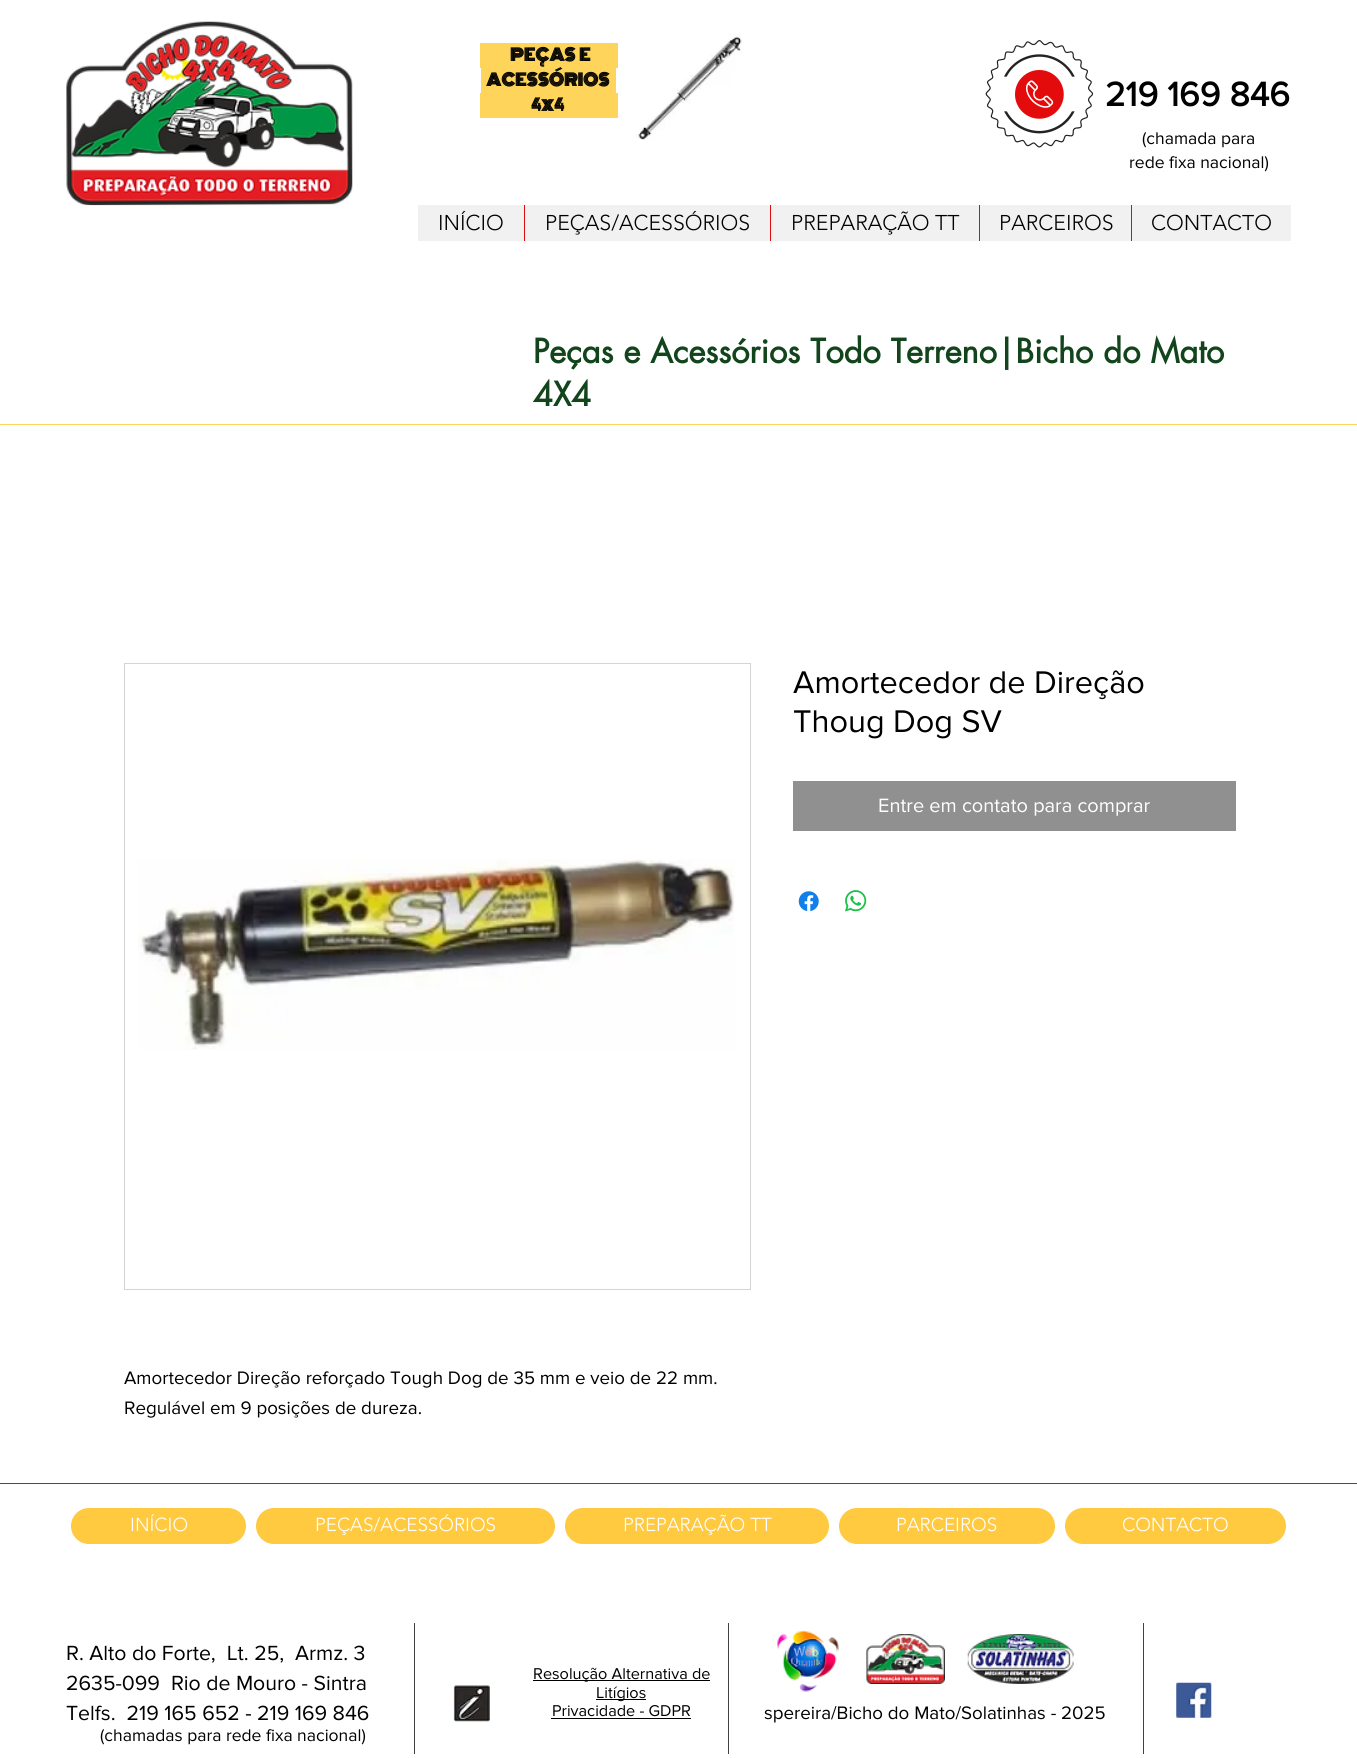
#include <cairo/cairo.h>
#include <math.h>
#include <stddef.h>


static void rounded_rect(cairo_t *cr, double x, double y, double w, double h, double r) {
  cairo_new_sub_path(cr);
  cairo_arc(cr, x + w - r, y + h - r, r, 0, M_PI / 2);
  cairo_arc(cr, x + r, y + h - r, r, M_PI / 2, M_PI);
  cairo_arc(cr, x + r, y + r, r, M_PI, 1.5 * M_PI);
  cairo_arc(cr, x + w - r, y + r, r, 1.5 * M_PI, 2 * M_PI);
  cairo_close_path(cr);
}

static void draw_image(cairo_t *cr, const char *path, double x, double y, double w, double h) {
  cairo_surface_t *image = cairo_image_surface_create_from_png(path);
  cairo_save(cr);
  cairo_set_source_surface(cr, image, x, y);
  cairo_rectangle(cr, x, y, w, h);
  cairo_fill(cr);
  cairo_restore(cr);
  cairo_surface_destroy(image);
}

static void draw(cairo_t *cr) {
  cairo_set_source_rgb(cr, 1, 1, 1);
  cairo_paint(cr);
  draw_image(cr, "images/1.png", 66, 21, 287, 185);
  cairo_set_source_rgb(cr, 1, 212 / 255.0, 90 / 255.0);
  cairo_rectangle(cr, 480, 43, 138, 25);
  cairo_fill(cr);
  cairo_rectangle(cr, 481, 68, 135, 25);
  cairo_fill(cr);
  cairo_rectangle(cr, 480, 93, 138, 25);
  cairo_fill(cr);
  draw_image(cr, "images/2.png", 635, 34, 107, 106);
  draw_image(cr, "images/4.png", 1015, 70, 49, 49);
  draw_image(cr, "images/3.png", 985, 40, 109, 108);
  cairo_set_source_rgb(cr, 241 / 255.0, 241 / 255.0, 241 / 255.0);
  cairo_rectangle(cr, 418, 205, 873, 36);
  cairo_fill(cr);
  cairo_set_source_rgb(cr, 227 / 255.0, 11 / 255.0, 11 / 255.0);
  cairo_rectangle(cr, 524, 205, 1, 36);
  cairo_fill(cr);
  cairo_rectangle(cr, 770, 205, 1, 36);
  cairo_fill(cr);
  cairo_rectangle(cr, 979, 205, 1, 36);
  cairo_fill(cr);
  cairo_rectangle(cr, 1131, 205, 1, 36);
  cairo_fill(cr);
  cairo_set_source_rgb(cr, 1, 212 / 255.0, 90 / 255.0);
  cairo_rectangle(cr, 0, 424, 1357, 1);
  cairo_fill(cr);
  cairo_set_source_rgb(cr, 144 / 255.0, 144 / 255.0, 144 / 255.0);
  cairo_rectangle(cr, 793, 781, 443, 50);
  cairo_fill(cr);
  draw_image(cr, "images/5.png", 798, 891, 21, 21);
  draw_image(cr, "images/6.png", 845, 890, 22, 22);
  cairo_rectangle(cr, 124.5, 663.5, 626, 626);
  cairo_set_source_rgb(cr, 212 / 255.0, 212 / 255.0, 212 / 255.0);
  cairo_set_line_width(cr, 1);
  cairo_stroke(cr);
  draw_image(cr, "images/7.png", 138, 859, 597, 191);
  cairo_set_source_rgb(cr, 227 / 255.0, 11 / 255.0, 11 / 255.0);
  cairo_rectangle(cr, 0, 1483, 1357, 1);
  cairo_fill(cr);
  cairo_set_source_rgb(cr, 1, 201 / 255.0, 64 / 255.0);
  rounded_rect(cr, 71, 1508, 175, 36, 18);
  cairo_fill(cr);
  rounded_rect(cr, 256, 1508, 299, 36, 18);
  cairo_fill(cr);
  rounded_rect(cr, 565, 1508, 264, 36, 18);
  cairo_fill(cr);
  rounded_rect(cr, 839, 1508, 216, 36, 18);
  cairo_fill(cr);
  rounded_rect(cr, 1065, 1508, 221, 36, 18);
  cairo_fill(cr);
  cairo_set_source_rgb(cr, 66 / 255.0, 66 / 255.0, 66 / 255.0);
  cairo_rectangle(cr, 414, 1623, 1, 131);
  cairo_fill(cr);
  draw_image(cr, "images/8.png", 453, 1685, 37, 37);
  cairo_set_source_rgb(cr, 0, 0, 0);
  cairo_rectangle(cr, 533, 1680, 177, 1);
  cairo_fill(cr);
  cairo_rectangle(cr, 596, 1699, 50, 1);
  cairo_fill(cr);
  cairo_rectangle(cr, 551, 1718, 140, 1);
  cairo_fill(cr);
  cairo_set_source_rgb(cr, 66 / 255.0, 66 / 255.0, 66 / 255.0);
  cairo_rectangle(cr, 728, 1623, 1, 131);
  cairo_fill(cr);
  draw_image(cr, "images/9.png", 777, 1630, 62, 62);
  draw_image(cr, "images/10.png", 866, 1634, 79, 50);
  draw_image(cr, "images/11.png", 967, 1634, 107, 50);
  cairo_rectangle(cr, 1143, 1623, 1, 131);
  cairo_fill(cr);
  draw_image(cr, "images/12.png", 1176, 1682, 36, 36);
  cairo_select_font_face(cr, "Monoton", CAIRO_FONT_SLANT_NORMAL, CAIRO_FONT_WEIGHT_BOLD);
  cairo_set_font_size(cr, 16.25);
  cairo_set_source_rgb(cr, 0, 0, 0);
  cairo_move_to(cr, 510, 61);
  cairo_show_text(cr, "PEÇAS  E");
  cairo_move_to(cr, 486, 86);
  cairo_show_text(cr, "ACESSÓRIOS");
  cairo_move_to(cr, 531, 111);
  cairo_show_text(cr, "4x4");
  cairo_select_font_face(cr, "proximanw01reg", CAIRO_FONT_SLANT_NORMAL, CAIRO_FONT_WEIGHT_BOLD);
  cairo_set_font_size(cr, 35);
  cairo_move_to(cr, 1105, 106);
  cairo_show_text(cr, "219 169 846");
  cairo_select_font_face(cr, "proximanw01reg", CAIRO_FONT_SLANT_NORMAL, CAIRO_FONT_WEIGHT_NORMAL);
  cairo_set_font_size(cr, 17.5);
  cairo_move_to(cr, 1142, 144);
  cairo_show_text(cr, "(chamada para");
  cairo_move_to(cr, 1129, 168);
  cairo_show_text(cr, "rede fixa nacional)");
  cairo_select_font_face(cr, "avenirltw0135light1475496 Light", CAIRO_FONT_SLANT_NORMAL, CAIRO_FONT_WEIGHT_NORMAL);
  cairo_set_font_size(cr, 21.25);
  cairo_move_to(cr, 438, 230);
  cairo_show_text(cr, "INÍCIO");
  cairo_move_to(cr, 545, 230);
  cairo_show_text(cr, "PEÇAS/ACESSÓRIOS");
  cairo_move_to(cr, 791, 230);
  cairo_show_text(cr, "PREPARAÇÃO TT");
  cairo_move_to(cr, 999, 230);
  cairo_show_text(cr, "PARCEIROS");
  cairo_move_to(cr, 1151, 230);
  cairo_show_text(cr, "CONTACTO");
  cairo_select_font_face(cr, "futura", CAIRO_FONT_SLANT_NORMAL, CAIRO_FONT_WEIGHT_BOLD);
  cairo_set_font_size(cr, 32.5);
  cairo_set_source_rgb(cr, 18 / 255.0, 69 / 255.0, 28 / 255.0);
  cairo_move_to(cr, 533, 363);
  cairo_show_text(cr, "Peças e Acessórios Todo Terreno|Bicho do Mato");
  cairo_move_to(cr, 533, 406);
  cairo_show_text(cr, "4X4");
  cairo_select_font_face(cr, "proximanw01reg", CAIRO_FONT_SLANT_NORMAL, CAIRO_FONT_WEIGHT_NORMAL);
  cairo_set_source_rgb(cr, 0, 0, 0);
  cairo_move_to(cr, 793, 693);
  cairo_show_text(cr, "Amortecedor de Direção");
  cairo_move_to(cr, 793, 732);
  cairo_show_text(cr, "Thoug Dog SV");
  cairo_set_font_size(cr, 20);
  cairo_set_source_rgb(cr, 1, 1, 1);
  cairo_move_to(cr, 878, 812);
  cairo_show_text(cr, "Entre em contato para comprar");
  cairo_set_font_size(cr, 18.75);
  cairo_set_source_rgb(cr, 0, 0, 0);
  cairo_move_to(cr, 124, 1384);
  cairo_show_text(cr, "Amortecedor Direção reforçado Tough Dog de 35 mm e veio de 22 mm.");
  cairo_move_to(cr, 124, 1414);
  cairo_show_text(cr, "Regulável em 9 posições de dureza.");
  cairo_select_font_face(cr, "avenirltw0135light1475496 Light", CAIRO_FONT_SLANT_NORMAL, CAIRO_FONT_WEIGHT_NORMAL);
  cairo_set_source_rgb(cr, 1, 1, 1);
  cairo_move_to(cr, 130, 1531);
  cairo_show_text(cr, "INÍCIO");
  cairo_move_to(cr, 315, 1531);
  cairo_show_text(cr, "PEÇAS/ACESSÓRIOS");
  cairo_move_to(cr, 623, 1531);
  cairo_show_text(cr, "PREPARAÇÃO TT");
  cairo_move_to(cr, 896, 1531);
  cairo_show_text(cr, "PARCEIROS");
  cairo_move_to(cr, 1122, 1531);
  cairo_show_text(cr, "CONTACTO");
  cairo_select_font_face(cr, "proximanw01reg", CAIRO_FONT_SLANT_NORMAL, CAIRO_FONT_WEIGHT_NORMAL);
  cairo_set_font_size(cr, 21.25);
  cairo_set_source_rgb(cr, 0, 0, 0);
  cairo_move_to(cr, 66, 1660);
  cairo_show_text(cr, "R. Alto do Forte,  Lt. 25,  Armz. 3");
  cairo_move_to(cr, 66, 1690);
  cairo_show_text(cr, "2635-099  Rio de Mouro - Sintra");
  cairo_move_to(cr, 66, 1720);
  cairo_show_text(cr, "Telfs.  219 165 652 - 219 169 846");
  cairo_set_font_size(cr, 16.25);
  cairo_move_to(cr, 533, 1679);
  cairo_show_text(cr, "Resolução Alternativa de");
  cairo_move_to(cr, 596, 1698);
  cairo_show_text(cr, "Litígios");
  cairo_move_to(cr, 552, 1716);
  cairo_show_text(cr, "Privacidade - GDPR");
  cairo_set_font_size(cr, 18.75);
  cairo_move_to(cr, 764, 1719);
  cairo_show_text(cr, "spereira/Bicho do Mato/Solatinhas - 2025");
  cairo_set_font_size(cr, 17.5);
  cairo_move_to(cr, 100, 1741);
  cairo_show_text(cr, "(chamadas para rede fixa nacional)");
}

int main(void) {
  cairo_surface_t *surface = cairo_image_surface_create(CAIRO_FORMAT_RGB24, 1357, 1758);
  cairo_t *cr = cairo_create(surface);
  cairo_font_options_t *options = cairo_font_options_create();
  cairo_font_options_set_hint_metrics(options, CAIRO_HINT_METRICS_OFF);
  cairo_font_options_set_hint_style(options, CAIRO_HINT_STYLE_NONE);
  cairo_set_font_options(cr, options);
  cairo_set_miter_limit(cr, 4);
  draw(cr);
  cairo_surface_write_to_png(surface, "out.png");
  cairo_font_options_destroy(options);
  cairo_destroy(cr);
  cairo_surface_destroy(surface);
  return 0;
}
